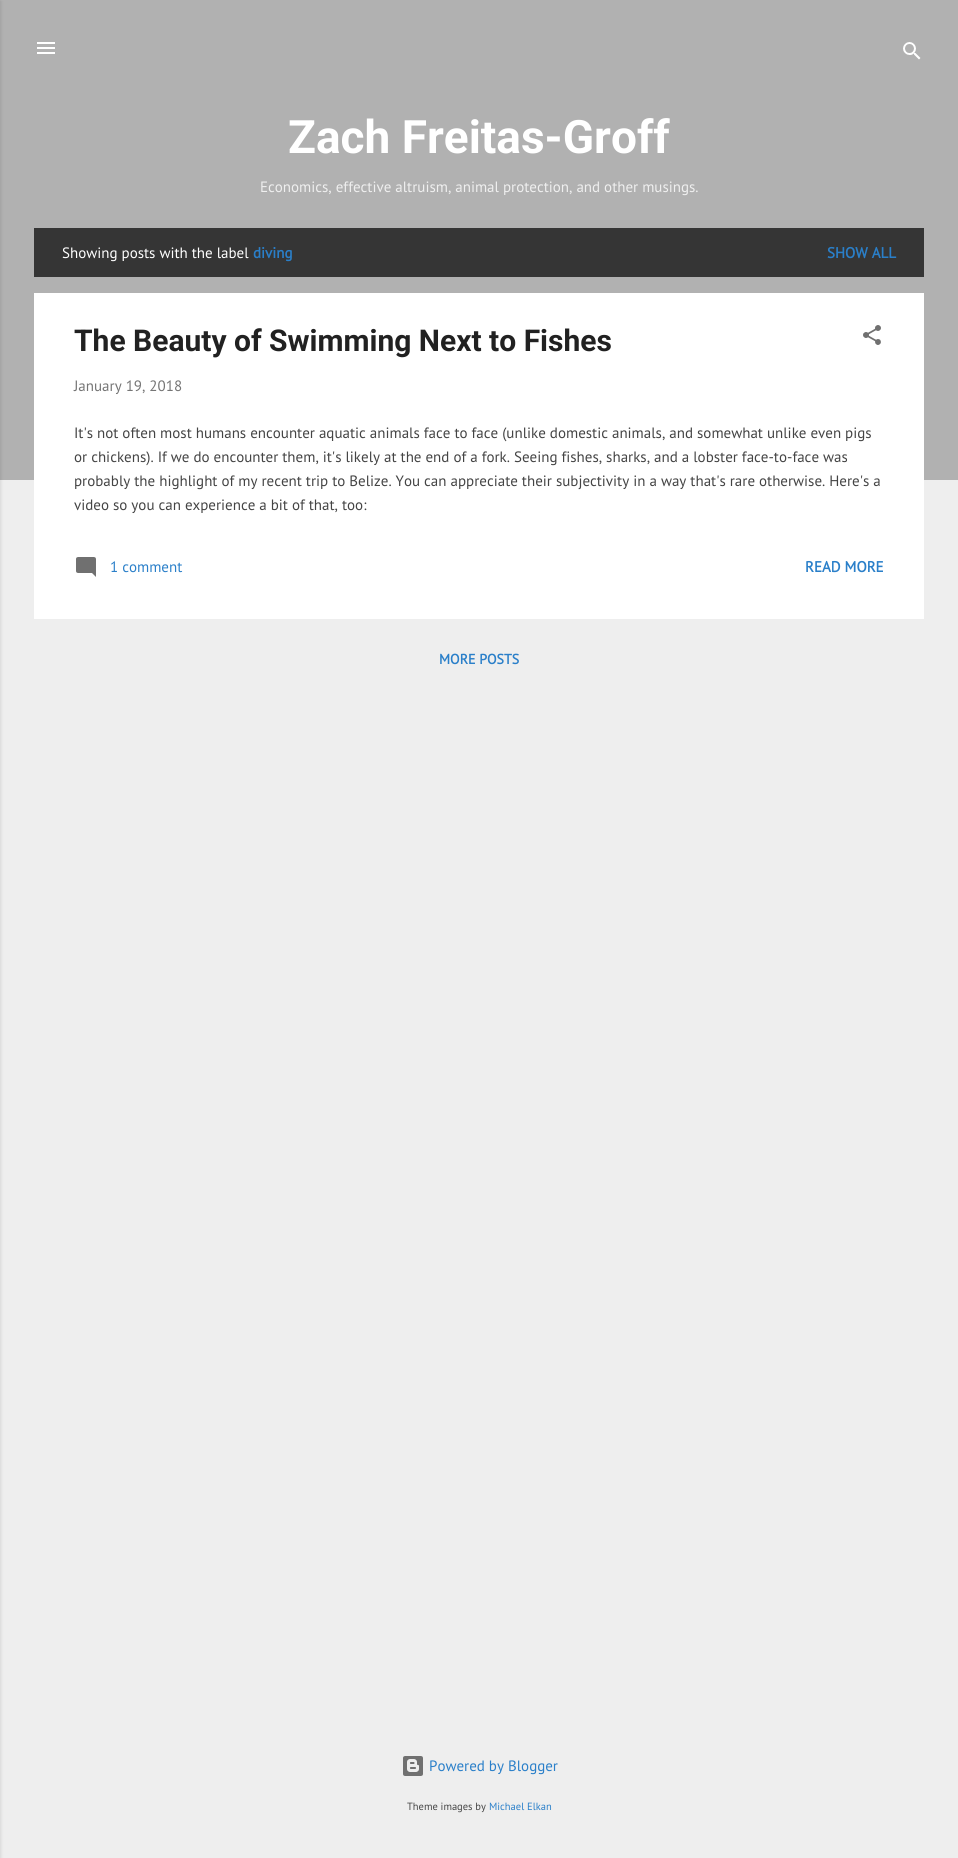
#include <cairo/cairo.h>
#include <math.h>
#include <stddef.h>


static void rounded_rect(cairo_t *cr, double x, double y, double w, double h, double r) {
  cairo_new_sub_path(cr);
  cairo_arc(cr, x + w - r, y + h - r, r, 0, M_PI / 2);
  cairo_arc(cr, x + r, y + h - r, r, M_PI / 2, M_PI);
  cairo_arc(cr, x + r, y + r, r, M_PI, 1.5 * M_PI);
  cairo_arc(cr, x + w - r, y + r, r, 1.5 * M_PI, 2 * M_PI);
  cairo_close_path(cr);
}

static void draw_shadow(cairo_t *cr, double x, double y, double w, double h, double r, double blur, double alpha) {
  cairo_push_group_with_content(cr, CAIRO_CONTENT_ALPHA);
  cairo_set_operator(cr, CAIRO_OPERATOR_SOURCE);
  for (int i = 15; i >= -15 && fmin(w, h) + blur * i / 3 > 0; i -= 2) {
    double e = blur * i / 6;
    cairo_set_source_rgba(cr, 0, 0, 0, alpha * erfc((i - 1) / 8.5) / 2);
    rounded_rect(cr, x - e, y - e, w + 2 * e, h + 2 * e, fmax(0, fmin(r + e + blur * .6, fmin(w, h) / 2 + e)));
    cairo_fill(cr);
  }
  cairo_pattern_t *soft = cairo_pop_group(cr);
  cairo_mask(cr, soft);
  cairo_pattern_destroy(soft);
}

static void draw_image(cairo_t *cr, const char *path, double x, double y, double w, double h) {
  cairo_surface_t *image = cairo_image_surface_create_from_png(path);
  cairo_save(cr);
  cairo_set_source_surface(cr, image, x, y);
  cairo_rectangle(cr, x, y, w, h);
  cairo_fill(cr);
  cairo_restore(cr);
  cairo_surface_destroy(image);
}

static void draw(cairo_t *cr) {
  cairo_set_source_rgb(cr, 238 / 255.0, 238 / 255.0, 238 / 255.0);
  cairo_paint(cr);
  cairo_set_source_rgb(cr, 177 / 255.0, 177 / 255.0, 177 / 255.0);
  cairo_rectangle(cr, 0, 0, 958, 480);
  cairo_fill(cr);
  cairo_set_source_rgb(cr, 0, 0, 0);
  draw_shadow(cr, -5, 1, 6, 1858, 0, 1.5, 0.1);
  draw_image(cr, "images/1.png", 37, 42, 18, 12);
  draw_image(cr, "images/2.png", 903, 42, 18, 18);
  cairo_set_source_rgb(cr, 53 / 255.0, 53 / 255.0, 53 / 255.0);
  cairo_rectangle(cr, 34, 228, 890, 49);
  cairo_fill(cr);
  cairo_set_source_rgb(cr, 1, 1, 1);
  cairo_rectangle(cr, 34, 293, 890, 326);
  cairo_fill(cr);
  draw_image(cr, "images/3.png", 863, 325, 18, 20);
  draw_image(cr, "images/4.png", 76, 557, 20, 20);
  draw_image(cr, "images/5.png", 403, 1756, 20, 20);
  cairo_select_font_face(cr, "Roboto", CAIRO_FONT_SLANT_NORMAL, CAIRO_FONT_WEIGHT_BOLD);
  cairo_set_font_size(cr, 46);
  cairo_move_to(cr, 288, 153);
  cairo_show_text(cr, "Zach Freitas-Groff");
  cairo_select_font_face(cr, "PT Sans", CAIRO_FONT_SLANT_NORMAL, CAIRO_FONT_WEIGHT_NORMAL);
  cairo_set_font_size(cr, 15);
  cairo_set_source_rgb(cr, 239 / 255.0, 239 / 255.0, 239 / 255.0);
  cairo_move_to(cr, 260, 192);
  cairo_show_text(cr, "Economics, effective altruism, animal protection, and other musings.");
  cairo_set_source_rgb(cr, 1, 1, 1);
  cairo_move_to(cr, 62, 258);
  cairo_show_text(cr, "Showing posts with the label");
  cairo_select_font_face(cr, "PT Sans", CAIRO_FONT_SLANT_NORMAL, CAIRO_FONT_WEIGHT_BOLD);
  cairo_set_source_rgb(cr, 42 / 255.0, 127 / 255.0, 201 / 255.0);
  cairo_move_to(cr, 253, 258);
  cairo_show_text(cr, "diving");
  cairo_move_to(cr, 827, 258);
  cairo_show_text(cr, "SHOW ALL");
  cairo_select_font_face(cr, "Roboto", CAIRO_FONT_SLANT_NORMAL, CAIRO_FONT_WEIGHT_BOLD);
  cairo_set_font_size(cr, 30);
  cairo_set_source_rgb(cr, 33 / 255.0, 33 / 255.0, 33 / 255.0);
  cairo_move_to(cr, 74, 351);
  cairo_show_text(cr, "The Beauty of Swimming Next to Fishes");
  cairo_select_font_face(cr, "PT Sans", CAIRO_FONT_SLANT_NORMAL, CAIRO_FONT_WEIGHT_NORMAL);
  cairo_set_font_size(cr, 15);
  cairo_set_source_rgb(cr, 117 / 255.0, 117 / 255.0, 117 / 255.0);
  cairo_move_to(cr, 74, 391);
  cairo_show_text(cr, "January 19, 2018");
  cairo_set_source_rgb(cr, 68 / 255.0, 68 / 255.0, 68 / 255.0);
  cairo_move_to(cr, 74, 438);
  cairo_show_text(cr, "It's not often most humans encounter aquatic animals face to face (unlike domestic animals, and somewhat unlike even pigs");
  cairo_move_to(cr, 74, 462);
  cairo_show_text(cr, "or chickens). If we do encounter them, it's likely at the end of a fork. Seeing fishes, sharks, and a lobster face-to-face was");
  cairo_move_to(cr, 74, 486);
  cairo_show_text(cr, "probably the highlight of my recent trip to Belize. You can appreciate their subjectivity in a way that's rare otherwise. Here's a");
  cairo_move_to(cr, 74, 510);
  cairo_show_text(cr, "video so you can experience a bit of that, too:");
  cairo_set_source_rgb(cr, 42 / 255.0, 127 / 255.0, 201 / 255.0);
  cairo_move_to(cr, 110, 572);
  cairo_show_text(cr, "1 comment");
  cairo_select_font_face(cr, "PT Sans", CAIRO_FONT_SLANT_NORMAL, CAIRO_FONT_WEIGHT_BOLD);
  cairo_move_to(cr, 805, 572);
  cairo_show_text(cr, "READ MORE");
  cairo_set_font_size(cr, 14);
  cairo_move_to(cr, 439, 664);
  cairo_show_text(cr, "MORE POSTS");
  cairo_select_font_face(cr, "PT Sans", CAIRO_FONT_SLANT_NORMAL, CAIRO_FONT_WEIGHT_NORMAL);
  cairo_set_font_size(cr, 15);
  cairo_move_to(cr, 429, 1771);
  cairo_show_text(cr, "Powered by Blogger");
  cairo_set_font_size(cr, 10.5);
  cairo_set_source_rgb(cr, 68 / 255.0, 68 / 255.0, 68 / 255.0);
  cairo_move_to(cr, 407, 1810);
  cairo_show_text(cr, "Theme images by");
  cairo_set_source_rgb(cr, 42 / 255.0, 127 / 255.0, 201 / 255.0);
  cairo_move_to(cr, 489, 1810);
  cairo_show_text(cr, "Michael Elkan");
}

int main(void) {
  cairo_surface_t *surface = cairo_image_surface_create(CAIRO_FORMAT_RGB24, 958, 1858);
  cairo_t *cr = cairo_create(surface);
  cairo_font_options_t *options = cairo_font_options_create();
  cairo_font_options_set_hint_metrics(options, CAIRO_HINT_METRICS_OFF);
  cairo_font_options_set_hint_style(options, CAIRO_HINT_STYLE_NONE);
  cairo_set_font_options(cr, options);
  cairo_set_miter_limit(cr, 4);
  draw(cr);
  cairo_surface_write_to_png(surface, "out.png");
  cairo_font_options_destroy(options);
  cairo_destroy(cr);
  cairo_surface_destroy(surface);
  return 0;
}
